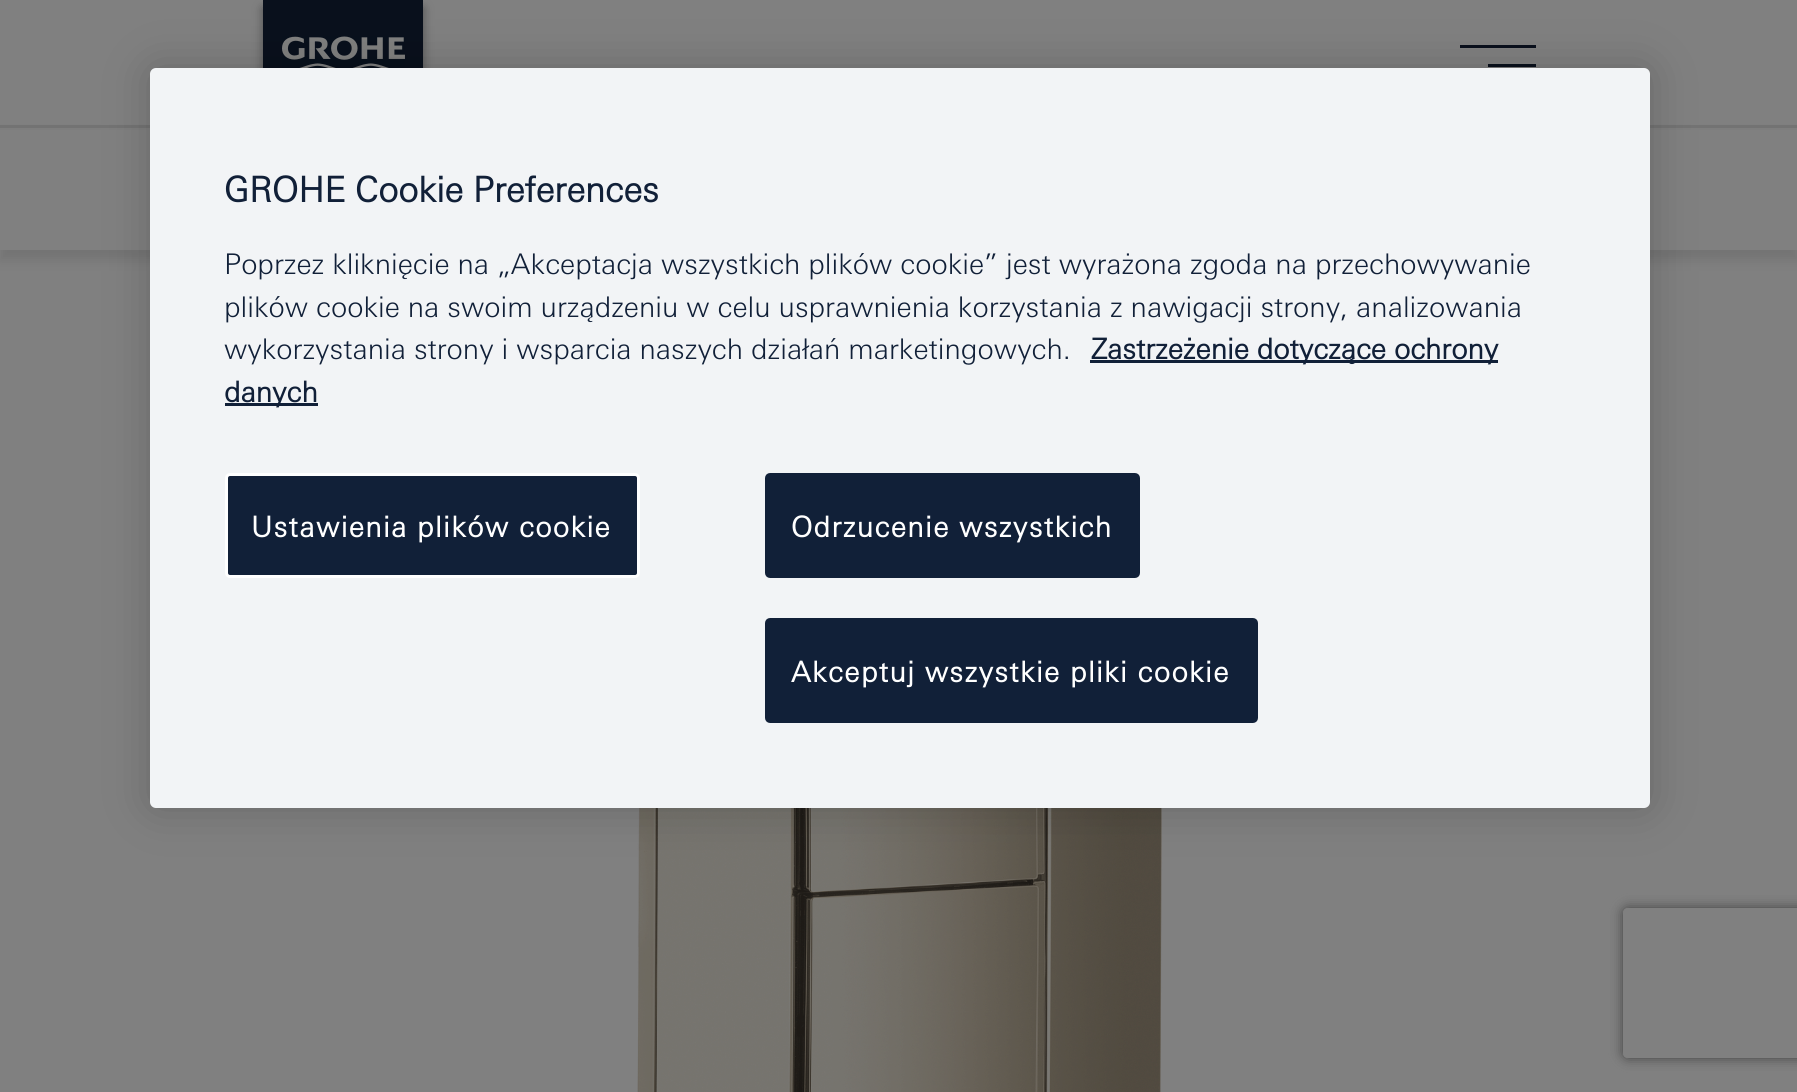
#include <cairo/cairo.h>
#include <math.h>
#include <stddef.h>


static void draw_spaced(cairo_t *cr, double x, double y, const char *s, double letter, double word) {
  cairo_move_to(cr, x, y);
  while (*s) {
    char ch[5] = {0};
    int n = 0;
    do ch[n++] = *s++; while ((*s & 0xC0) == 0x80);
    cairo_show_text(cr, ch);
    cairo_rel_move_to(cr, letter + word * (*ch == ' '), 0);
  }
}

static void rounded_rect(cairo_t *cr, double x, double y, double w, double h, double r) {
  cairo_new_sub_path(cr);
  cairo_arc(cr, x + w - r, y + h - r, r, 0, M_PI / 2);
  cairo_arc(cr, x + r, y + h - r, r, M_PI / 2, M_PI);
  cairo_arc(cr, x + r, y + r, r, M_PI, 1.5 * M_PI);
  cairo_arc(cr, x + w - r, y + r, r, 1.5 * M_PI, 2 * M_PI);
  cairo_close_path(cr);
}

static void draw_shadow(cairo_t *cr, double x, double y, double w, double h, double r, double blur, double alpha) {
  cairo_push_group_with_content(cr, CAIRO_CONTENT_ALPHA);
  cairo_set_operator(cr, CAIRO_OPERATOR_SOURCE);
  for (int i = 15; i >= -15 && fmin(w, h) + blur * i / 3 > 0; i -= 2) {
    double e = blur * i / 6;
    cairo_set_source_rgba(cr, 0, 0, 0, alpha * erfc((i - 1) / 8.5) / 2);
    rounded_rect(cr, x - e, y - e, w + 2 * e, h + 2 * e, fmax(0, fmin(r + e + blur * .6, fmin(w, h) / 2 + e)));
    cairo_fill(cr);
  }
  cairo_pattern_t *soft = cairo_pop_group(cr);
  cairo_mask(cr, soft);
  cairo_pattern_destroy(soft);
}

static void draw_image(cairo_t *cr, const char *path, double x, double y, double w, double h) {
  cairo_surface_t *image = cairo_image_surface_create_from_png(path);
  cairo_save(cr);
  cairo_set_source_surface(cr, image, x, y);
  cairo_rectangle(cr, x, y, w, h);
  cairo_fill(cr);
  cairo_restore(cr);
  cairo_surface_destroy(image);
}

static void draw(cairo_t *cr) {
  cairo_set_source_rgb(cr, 128 / 255.0, 128 / 255.0, 128 / 255.0);
  cairo_paint(cr);
  cairo_set_source_rgb(cr, 0, 0, 0);
  draw_shadow(cr, 0, 135, 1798, 125, 0, 6, 0.1);
  cairo_set_source_rgb(cr, 128 / 255.0, 128 / 255.0, 128 / 255.0);
  cairo_rectangle(cr, 0, 130, 1797, 120);
  cairo_fill(cr);
  cairo_set_source_rgb(cr, 115 / 255.0, 115 / 255.0, 115 / 255.0);
  cairo_rectangle(cr, 0, 125, 1797, 3);
  cairo_fill(cr);
  cairo_set_source_rgb(cr, 0, 0, 0);
  draw_shadow(cr, 263, 8, 160, 125, 0, 5, 0.4);
  cairo_set_source_rgb(cr, 9 / 255.0, 16 / 255.0, 28 / 255.0);
  cairo_rectangle(cr, 263, 0, 160, 68);
  cairo_fill(cr);
  draw_image(cr, "images/1.png", 282, 36, 123, 32);
  cairo_new_path(cr);
  cairo_move_to(cr, 1460, 45);
  cairo_line_to(cr, 1536, 45);
  cairo_line_to(cr, 1536, 48);
  cairo_line_to(cr, 1460, 48);
  cairo_close_path(cr);
  cairo_move_to(cr, 1488, 64);
  cairo_line_to(cr, 1536, 64);
  cairo_line_to(cr, 1536, 67);
  cairo_line_to(cr, 1488, 67);
  cairo_close_path(cr);
  cairo_move_to(cr, 1460, 84);
  cairo_line_to(cr, 1536, 84);
  cairo_line_to(cr, 1536, 86);
  cairo_line_to(cr, 1460, 86);
  cairo_close_path(cr);
  cairo_fill(cr);
  draw_image(cr, "images/2.png", 637, 808, 526, 284);
  cairo_set_source_rgb(cr, 0, 0, 0);
  draw_shadow(cr, 150, 68, 1500, 740, 6, 22.5, 0.2);
  cairo_set_source_rgb(cr, 242 / 255.0, 244 / 255.0, 246 / 255.0);
  rounded_rect(cr, 150, 68, 1500, 740, 6);
  cairo_fill(cr);
  cairo_set_source_rgb(cr, 17 / 255.0, 32 / 255.0, 56 / 255.0);
  cairo_rectangle(cr, 1090, 360, 408, 3);
  cairo_fill(cr);
  cairo_rectangle(cr, 225, 403, 93, 3);
  cairo_fill(cr);
  rounded_rect(cr, 226.5, 474.5, 412, 102, 3.5);
  cairo_fill_preserve(cr);
  cairo_set_source_rgb(cr, 1, 1, 1);
  cairo_set_line_width(cr, 3);
  cairo_stroke(cr);
  cairo_set_source_rgb(cr, 17 / 255.0, 32 / 255.0, 56 / 255.0);
  rounded_rect(cr, 766.5, 474.5, 372, 102, 3.5);
  cairo_fill_preserve(cr);
  cairo_stroke(cr);
  rounded_rect(cr, 766.5, 619.5, 490, 102, 3.5);
  cairo_fill_preserve(cr);
  cairo_stroke(cr);
  cairo_save(cr);
  cairo_set_fill_rule(cr, CAIRO_FILL_RULE_EVEN_ODD);
  cairo_new_path(cr);
  cairo_move_to(cr, 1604, 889);
  cairo_line_to(cr, 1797, 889);
  cairo_line_to(cr, 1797, 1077);
  cairo_line_to(cr, 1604, 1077);
  cairo_close_path(cr);
  cairo_move_to(cr, 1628, 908);
  cairo_line_to(cr, 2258, 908);
  cairo_curve_to(cr, 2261, 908, 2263, 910, 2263, 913);
  cairo_line_to(cr, 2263, 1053);
  cairo_curve_to(cr, 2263, 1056, 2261, 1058, 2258, 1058);
  cairo_line_to(cr, 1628, 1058);
  cairo_curve_to(cr, 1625, 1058, 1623, 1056, 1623, 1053);
  cairo_line_to(cr, 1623, 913);
  cairo_curve_to(cr, 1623, 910, 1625, 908, 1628, 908);
  cairo_close_path(cr);
  cairo_clip(cr);
  cairo_set_source_rgb(cr, 64 / 255.0, 64 / 255.0, 64 / 255.0);
  draw_shadow(cr, 1623, 908, 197, 150, 5, 6, 1);
  cairo_restore(cr);
  cairo_select_font_face(cr, "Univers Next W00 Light", CAIRO_FONT_SLANT_NORMAL, CAIRO_FONT_WEIGHT_BOLD);
  cairo_set_font_size(cr, 35);
  cairo_move_to(cr, 224, 202);
  cairo_show_text(cr, "GROHE Cookie Preferences");
  cairo_select_font_face(cr, "Univers Next W00 Light Light", CAIRO_FONT_SLANT_NORMAL, CAIRO_FONT_WEIGHT_NORMAL);
  cairo_set_font_size(cr, 28.45);
  cairo_move_to(cr, 224, 274);
  cairo_show_text(cr, "Poprzez kliknięcie na „Akceptacja wszystkich plików cookie” jest wyrażona zgoda na przechowywanie");
  cairo_move_to(cr, 224, 317);
  cairo_show_text(cr, "plików cookie na swoim urządzeniu w celu usprawnienia korzystania z nawigacji strony, analizowania");
  cairo_move_to(cr, 224, 359);
  cairo_show_text(cr, "wykorzystania strony i wsparcia naszych działań marketingowych.");
  cairo_select_font_face(cr, "Univers Next W00 Light", CAIRO_FONT_SLANT_NORMAL, CAIRO_FONT_WEIGHT_BOLD);
  cairo_move_to(cr, 1091, 359);
  cairo_show_text(cr, "Zastrzeżenie dotyczące ochrony");
  cairo_move_to(cr, 224, 402);
  cairo_show_text(cr, "danych");
  cairo_set_source_rgb(cr, 1, 1, 1);
  draw_spaced(cr, 251, 537, "Ustawienia plików cookie", 1.4, 0);
  draw_spaced(cr, 791, 537, "Odrzucenie wszystkich", 1.4, 0);
  draw_spaced(cr, 791, 682, "Akceptuj wszystkie pliki cookie", 1.4, 0);
}

int main(void) {
  cairo_surface_t *surface = cairo_image_surface_create(CAIRO_FORMAT_RGB24, 1797, 1092);
  cairo_t *cr = cairo_create(surface);
  cairo_font_options_t *options = cairo_font_options_create();
  cairo_font_options_set_hint_metrics(options, CAIRO_HINT_METRICS_OFF);
  cairo_font_options_set_hint_style(options, CAIRO_HINT_STYLE_NONE);
  cairo_set_font_options(cr, options);
  cairo_set_miter_limit(cr, 4);
  draw(cr);
  cairo_surface_write_to_png(surface, "out.png");
  cairo_font_options_destroy(options);
  cairo_destroy(cr);
  cairo_surface_destroy(surface);
  return 0;
}
